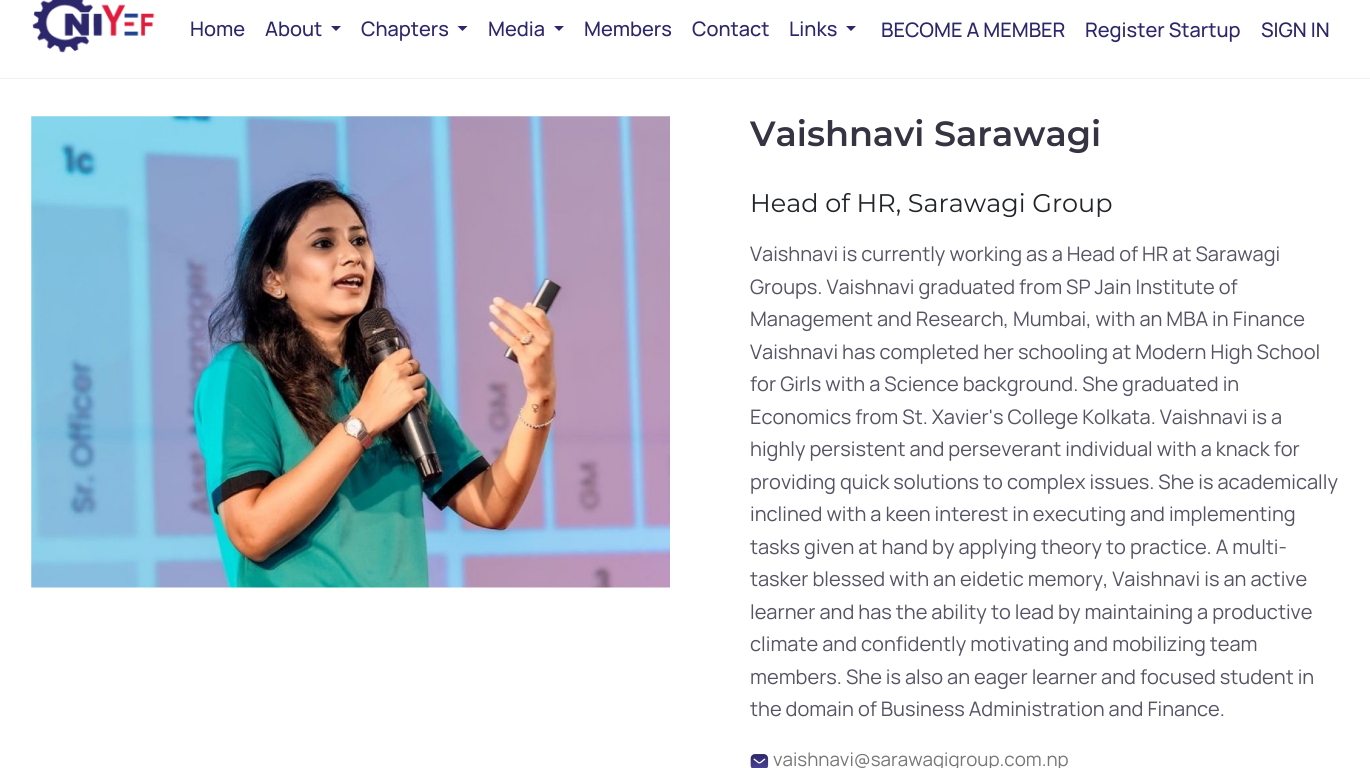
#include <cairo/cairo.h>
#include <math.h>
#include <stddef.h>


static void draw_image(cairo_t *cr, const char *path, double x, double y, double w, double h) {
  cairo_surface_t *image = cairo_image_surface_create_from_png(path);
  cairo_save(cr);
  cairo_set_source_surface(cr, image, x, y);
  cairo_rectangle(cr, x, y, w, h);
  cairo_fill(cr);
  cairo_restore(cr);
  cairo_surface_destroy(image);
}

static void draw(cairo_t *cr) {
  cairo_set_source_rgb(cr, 1, 1, 1);
  cairo_paint(cr);
  cairo_set_source_rgb(cr, 242 / 255.0, 240 / 255.0, 239 / 255.0);
  cairo_rectangle(cr, 0, 78, 1370, 1);
  cairo_fill(cr);
  draw_image(cr, "images/1.png", 32, 0, 123, 53);
  cairo_set_source_rgb(cr, 44 / 255.0, 38 / 255.0, 107 / 255.0);
  cairo_new_path(cr);
  cairo_move_to(cr, 331, 26);
  cairo_line_to(cr, 341, 26);
  cairo_line_to(cr, 336, 31);
  cairo_close_path(cr);
  cairo_fill(cr);
  cairo_new_path(cr);
  cairo_move_to(cr, 457.5, 26);
  cairo_line_to(cr, 467.5, 26);
  cairo_line_to(cr, 462.5, 31);
  cairo_close_path(cr);
  cairo_fill(cr);
  cairo_new_path(cr);
  cairo_move_to(cr, 554, 26);
  cairo_line_to(cr, 564, 26);
  cairo_line_to(cr, 559, 31);
  cairo_close_path(cr);
  cairo_fill(cr);
  cairo_new_path(cr);
  cairo_move_to(cr, 846, 26);
  cairo_line_to(cr, 856, 26);
  cairo_line_to(cr, 851, 31);
  cairo_close_path(cr);
  cairo_fill(cr);
  draw_image(cr, "images/2.png", 31, 116, 639, 472);
  draw_image(cr, "images/3.png", 750, 754, 19, 14);
  cairo_select_font_face(cr, "Manrope Medium", CAIRO_FONT_SLANT_NORMAL, CAIRO_FONT_WEIGHT_NORMAL);
  cairo_set_font_size(cr, 20);
  cairo_move_to(cr, 190, 36);
  cairo_show_text(cr, "Home");
  cairo_move_to(cr, 265, 36);
  cairo_show_text(cr, "About");
  cairo_move_to(cr, 361, 36);
  cairo_show_text(cr, "Chapters");
  cairo_move_to(cr, 488, 36);
  cairo_show_text(cr, "Media");
  cairo_move_to(cr, 584, 36);
  cairo_show_text(cr, "Members");
  cairo_move_to(cr, 692, 36);
  cairo_show_text(cr, "Contact");
  cairo_move_to(cr, 789, 36);
  cairo_show_text(cr, "Links");
  cairo_move_to(cr, 881, 37);
  cairo_show_text(cr, "BECOME A MEMBER");
  cairo_move_to(cr, 1085, 37);
  cairo_show_text(cr, "Register Startup");
  cairo_move_to(cr, 1261, 37);
  cairo_show_text(cr, "SIGN IN");
  cairo_select_font_face(cr, "Montserrat SemiBold", CAIRO_FONT_SLANT_NORMAL, CAIRO_FONT_WEIGHT_NORMAL);
  cairo_set_font_size(cr, 35);
  cairo_set_source_rgb(cr, 54 / 255.0, 52 / 255.0, 66 / 255.0);
  cairo_move_to(cr, 750, 146);
  cairo_show_text(cr, "Vaishnavi Sarawagi");
  cairo_select_font_face(cr, "Montserrat", CAIRO_FONT_SLANT_NORMAL, CAIRO_FONT_WEIGHT_NORMAL);
  cairo_set_font_size(cr, 25.5);
  cairo_set_source_rgb(cr, 33 / 255.0, 37 / 255.0, 41 / 255.0);
  cairo_move_to(cr, 750, 212);
  cairo_show_text(cr, "Head of HR, Sarawagi Group");
  cairo_select_font_face(cr, "Manrope", CAIRO_FONT_SLANT_NORMAL, CAIRO_FONT_WEIGHT_NORMAL);
  cairo_set_font_size(cr, 20);
  cairo_set_source_rgb(cr, 86 / 255.0, 84 / 255.0, 100 / 255.0);
  cairo_move_to(cr, 750, 261);
  cairo_show_text(cr, "Vaishnavi is currently working as a Head of HR at Sarawagi");
  cairo_move_to(cr, 750, 294);
  cairo_show_text(cr, "Groups. Vaishnavi graduated from SP Jain Institute of");
  cairo_move_to(cr, 750, 326);
  cairo_show_text(cr, "Management and Research, Mumbai, with an MBA in Finance");
  cairo_move_to(cr, 750, 359);
  cairo_show_text(cr, "Vaishnavi has completed her schooling at Modern High School");
  cairo_move_to(cr, 750, 391);
  cairo_show_text(cr, "for Girls with a Science background. She graduated in");
  cairo_move_to(cr, 750, 424);
  cairo_show_text(cr, "Economics from St. Xavier's College Kolkata. Vaishnavi is a");
  cairo_move_to(cr, 750, 456);
  cairo_show_text(cr, "highly persistent and perseverant individual with a knack for");
  cairo_move_to(cr, 750, 489);
  cairo_show_text(cr, "providing quick solutions to complex issues. She is academically");
  cairo_move_to(cr, 750, 521);
  cairo_show_text(cr, "inclined with a keen interest in executing and implementing");
  cairo_move_to(cr, 750, 554);
  cairo_show_text(cr, "tasks given at hand by applying theory to practice. A multi-");
  cairo_move_to(cr, 750, 586);
  cairo_show_text(cr, "tasker blessed with an eidetic memory, Vaishnavi is an active");
  cairo_move_to(cr, 750, 619);
  cairo_show_text(cr, "learner and has the ability to lead by maintaining a productive");
  cairo_move_to(cr, 750, 651);
  cairo_show_text(cr, "climate and confidently motivating and mobilizing team");
  cairo_move_to(cr, 750, 684);
  cairo_show_text(cr, "members. She is also an eager learner and focused student in");
  cairo_move_to(cr, 750, 716);
  cairo_show_text(cr, "the domain of Business Administration and Finance.");
  cairo_set_font_size(cr, 18.75);
  cairo_set_source_rgb(cr, 119 / 255.0, 119 / 255.0, 119 / 255.0);
  cairo_move_to(cr, 773, 766);
  cairo_show_text(cr, "vaishnavi@sarawagigroup.com.np");
}

int main(void) {
  cairo_surface_t *surface = cairo_image_surface_create(CAIRO_FORMAT_RGB24, 1370, 768);
  cairo_t *cr = cairo_create(surface);
  cairo_font_options_t *options = cairo_font_options_create();
  cairo_font_options_set_hint_metrics(options, CAIRO_HINT_METRICS_OFF);
  cairo_font_options_set_hint_style(options, CAIRO_HINT_STYLE_NONE);
  cairo_set_font_options(cr, options);
  cairo_set_miter_limit(cr, 4);
  draw(cr);
  cairo_surface_write_to_png(surface, "out.png");
  cairo_font_options_destroy(options);
  cairo_destroy(cr);
  cairo_surface_destroy(surface);
  return 0;
}
